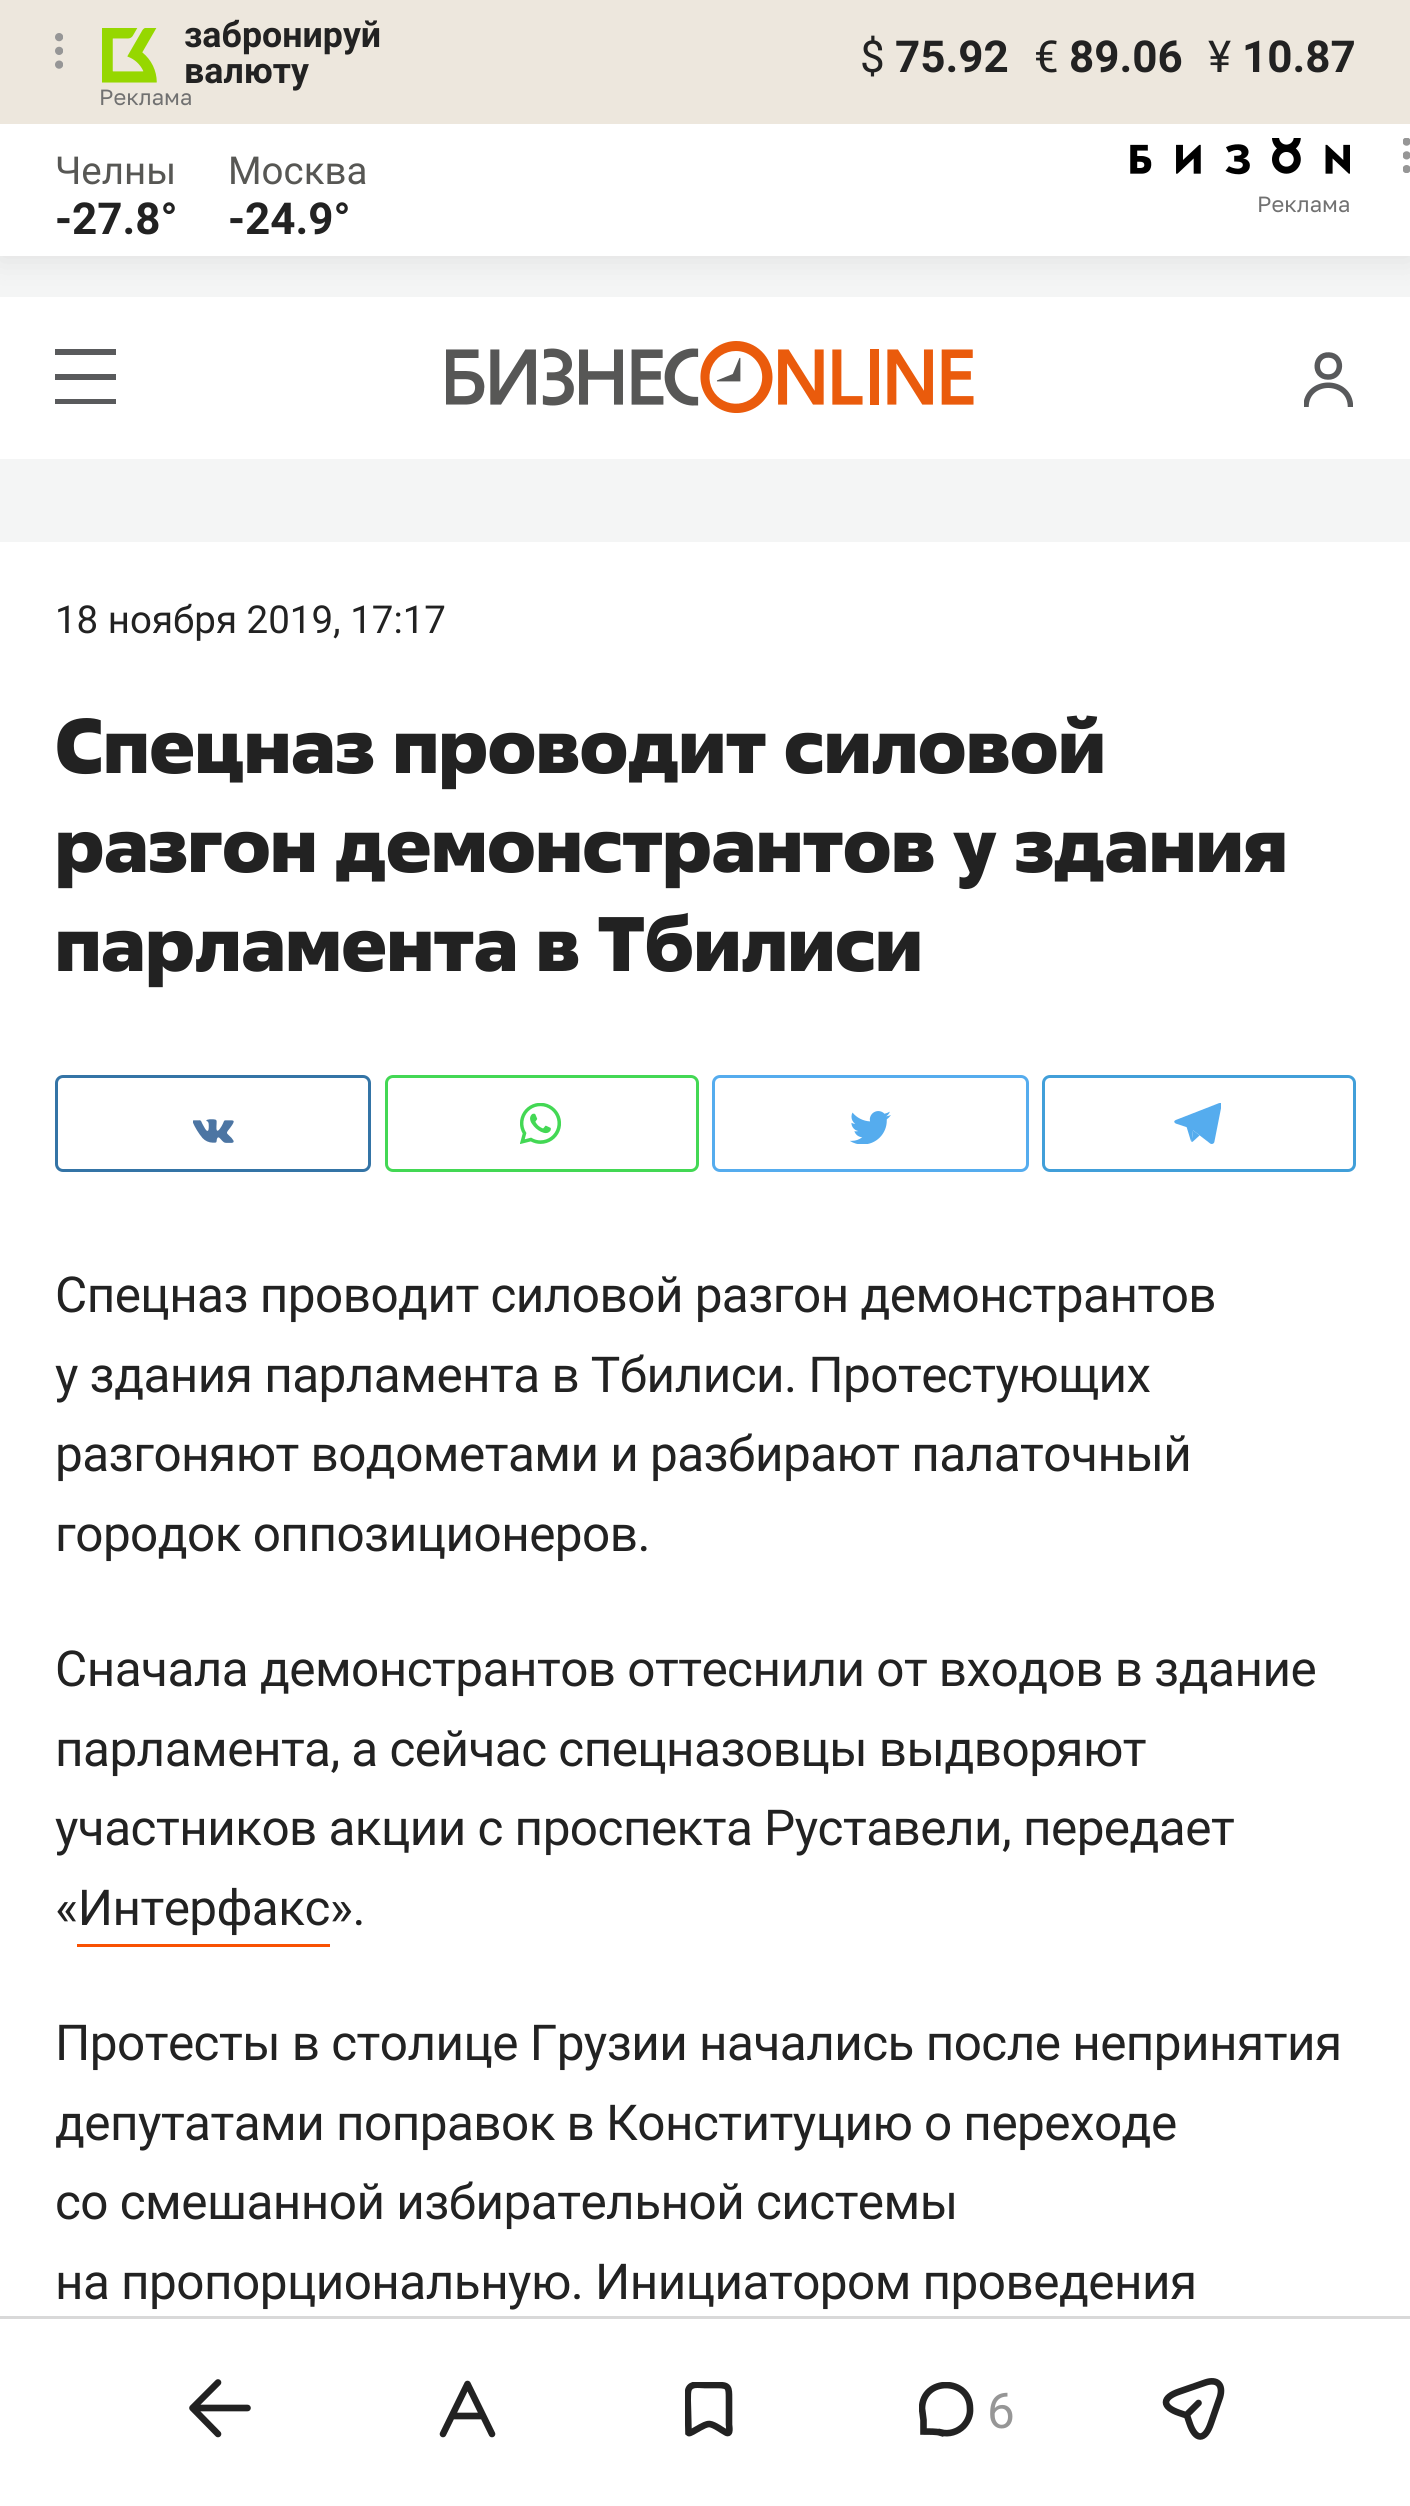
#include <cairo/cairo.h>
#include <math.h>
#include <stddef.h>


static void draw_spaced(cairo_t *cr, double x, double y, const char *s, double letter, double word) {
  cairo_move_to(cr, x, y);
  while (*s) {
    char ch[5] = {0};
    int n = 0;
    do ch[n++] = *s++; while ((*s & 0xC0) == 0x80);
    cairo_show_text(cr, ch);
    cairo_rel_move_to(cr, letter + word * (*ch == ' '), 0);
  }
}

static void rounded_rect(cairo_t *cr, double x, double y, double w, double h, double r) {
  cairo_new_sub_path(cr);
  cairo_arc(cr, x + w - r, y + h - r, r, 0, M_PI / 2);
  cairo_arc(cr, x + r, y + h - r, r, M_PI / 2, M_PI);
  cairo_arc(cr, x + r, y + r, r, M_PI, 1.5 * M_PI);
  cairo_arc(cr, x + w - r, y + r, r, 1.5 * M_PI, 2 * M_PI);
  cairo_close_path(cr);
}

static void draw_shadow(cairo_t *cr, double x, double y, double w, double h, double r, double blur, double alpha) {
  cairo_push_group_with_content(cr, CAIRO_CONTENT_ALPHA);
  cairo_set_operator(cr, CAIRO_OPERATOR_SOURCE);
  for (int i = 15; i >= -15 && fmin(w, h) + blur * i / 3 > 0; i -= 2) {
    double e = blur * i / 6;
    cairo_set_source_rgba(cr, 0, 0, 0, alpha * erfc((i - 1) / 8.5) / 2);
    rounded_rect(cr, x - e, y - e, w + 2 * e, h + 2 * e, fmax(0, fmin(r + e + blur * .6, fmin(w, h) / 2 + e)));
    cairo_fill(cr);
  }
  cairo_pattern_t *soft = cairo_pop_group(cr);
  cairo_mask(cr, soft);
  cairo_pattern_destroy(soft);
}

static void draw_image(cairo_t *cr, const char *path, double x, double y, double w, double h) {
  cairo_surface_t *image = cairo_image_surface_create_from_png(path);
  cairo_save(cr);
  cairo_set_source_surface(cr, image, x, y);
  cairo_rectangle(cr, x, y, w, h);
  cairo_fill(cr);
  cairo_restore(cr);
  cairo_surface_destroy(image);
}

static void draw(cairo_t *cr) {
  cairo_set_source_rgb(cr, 244 / 255.0, 245 / 255.0, 245 / 255.0);
  cairo_paint(cr);
  cairo_set_source_rgb(cr, 0, 0, 0);
  draw_shadow(cr, 0, 124, 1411, 132, 0, 16.5, 0.1);
  cairo_set_source_rgb(cr, 237 / 255.0, 231 / 255.0, 221 / 255.0);
  cairo_rectangle(cr, 0, 0, 1410, 124);
  cairo_fill(cr);
  draw_image(cr, "images/1.png", 55, 33, 8, 36);
  draw_image(cr, "images/2.png", 102, 28, 55, 55);
  cairo_set_source_rgb(cr, 1, 1, 1);
  cairo_rectangle(cr, 0, 124, 1410, 132);
  cairo_fill(cr);
  draw_image(cr, "images/3.png", 1130, 138, 220, 37);
  draw_image(cr, "images/4.png", 1403, 138, 7, 35);
  cairo_rectangle(cr, 0, 297, 1410, 162);
  cairo_fill(cr);
  cairo_set_source_rgb(cr, 89 / 255.0, 90 / 255.0, 92 / 255.0);
  cairo_rectangle(cr, 55, 349, 61, 55);
  cairo_fill(cr);
  cairo_set_source_rgb(cr, 1, 1, 1);
  cairo_rectangle(cr, 55, 355, 61, 19);
  cairo_fill(cr);
  cairo_rectangle(cr, 55, 380, 61, 19);
  cairo_fill(cr);
  draw_image(cr, "images/5.png", 446, 341, 528, 72);
  cairo_save(cr);
  cairo_rectangle(cr, 1304, 352, 49, 55);
  cairo_clip(cr);
  cairo_new_path(cr);
  cairo_move_to(cr, 1350.5, 407);
  cairo_curve_to(cr, 1350.5, 378, 1306, 378, 1306, 407);
  cairo_set_source_rgb(cr, 88 / 255.0, 89 / 255.0, 91 / 255.0);
  cairo_set_line_width(cr, 5.5);
  cairo_stroke(cr);
  cairo_restore(cr);
  cairo_new_path(cr);
  cairo_move_to(cr, 1328, 377);
  cairo_curve_to(cr, 1342.5, 377.5, 1343.5, 355.5, 1329, 355);
  cairo_curve_to(cr, 1314, 354, 1313, 377, 1328, 377);
  cairo_close_path(cr);
  cairo_set_source_rgb(cr, 88 / 255.0, 89 / 255.0, 91 / 255.0);
  cairo_set_line_width(cr, 5.5);
  cairo_stroke(cr);
  cairo_set_source_rgb(cr, 1, 1, 1);
  cairo_rectangle(cr, 0, 542, 1410, 1774);
  cairo_fill(cr);
  rounded_rect(cr, 56.5, 1076.5, 313, 94, 6.5);
  cairo_set_source_rgb(cr, 52 / 255.0, 116 / 255.0, 166 / 255.0);
  cairo_set_line_width(cr, 3);
  cairo_stroke(cr);
  draw_image(cr, "images/6.png", 193, 1119, 41, 24);
  rounded_rect(cr, 386.5, 1076.5, 311, 94, 6.5);
  cairo_set_source_rgb(cr, 67 / 255.0, 216 / 255.0, 84 / 255.0);
  cairo_stroke(cr);
  draw_image(cr, "images/7.png", 520, 1103, 41, 41);
  rounded_rect(cr, 713.5, 1076.5, 314, 94, 6.5);
  cairo_set_source_rgb(cr, 85 / 255.0, 172 / 255.0, 238 / 255.0);
  cairo_stroke(cr);
  draw_image(cr, "images/8.png", 850, 1111, 41, 33);
  rounded_rect(cr, 1043.5, 1076.5, 311, 94, 6.5);
  cairo_set_source_rgb(cr, 65 / 255.0, 159 / 255.0, 217 / 255.0);
  cairo_stroke(cr);
  draw_image(cr, "images/9.png", 1174, 1103, 47, 41);
  cairo_set_source_rgb(cr, 249 / 255.0, 81 / 255.0, 2 / 255.0);
  cairo_rectangle(cr, 77, 1944, 253, 3);
  cairo_fill(cr);
  cairo_set_source_rgb(cr, 1, 1, 1);
  cairo_rectangle(cr, 0, 2319, 1410, 187);
  cairo_fill(cr);
  cairo_set_source_rgb(cr, 217 / 255.0, 217 / 255.0, 217 / 255.0);
  cairo_rectangle(cr, 0, 2316, 1410, 3);
  cairo_fill(cr);
  cairo_new_path(cr);
  cairo_move_to(cr, 218, 2382.5);
  cairo_line_to(cr, 192.5, 2408);
  cairo_line_to(cr, 218, 2434);
  cairo_move_to(cr, 247.5, 2408);
  cairo_line_to(cr, 193, 2408);
  cairo_set_source_rgb(cr, 34 / 255.0, 34 / 255.0, 34 / 255.0);
  cairo_set_line_width(cr, 6.6);
  cairo_set_line_cap(cr, CAIRO_LINE_CAP_ROUND);
  cairo_set_line_join(cr, CAIRO_LINE_JOIN_ROUND);
  cairo_stroke(cr);
  cairo_new_path(cr);
  cairo_move_to(cr, 443, 2434);
  cairo_line_to(cr, 467.5, 2384);
  cairo_line_to(cr, 492, 2434);
  cairo_move_to(cr, 452, 2416);
  cairo_line_to(cr, 482.5, 2416);
  cairo_stroke(cr);
  cairo_save(cr);
  cairo_rectangle(cr, 685, 2382, 49, 55);
  cairo_clip(cr);
  cairo_new_path(cr);
  cairo_move_to(cr, 726, 2432.5);
  cairo_curve_to(cr, 722, 2430.5, 714.5, 2424.5, 709.5, 2424);
  cairo_curve_to(cr, 706, 2424, 703, 2426, 700, 2427.5);
  cairo_curve_to(cr, 694.5, 2430.5, 689.5, 2434, 688.5, 2433);
  cairo_line_to(cr, 688, 2411.5);
  cairo_curve_to(cr, 688, 2407, 687, 2393, 688.5, 2389.5);
  cairo_curve_to(cr, 691, 2383, 699, 2385, 704, 2385);
  cairo_line_to(cr, 717.5, 2385);
  cairo_curve_to(cr, 729, 2385, 729, 2387.5, 729, 2398.5);
  cairo_line_to(cr, 729, 2424.5);
  cairo_curve_to(cr, 729, 2426, 731, 2435.5, 726, 2432.5);
  cairo_close_path(cr);
  cairo_set_line_cap(cr, CAIRO_LINE_CAP_BUTT);
  cairo_set_line_join(cr, CAIRO_LINE_JOIN_MITER);
  cairo_stroke(cr);
  cairo_restore(cr);
  cairo_save(cr);
  cairo_rectangle(cr, 919, 2382, 55, 55);
  cairo_clip(cr);
  cairo_new_path(cr);
  cairo_move_to(cr, 922, 2408.5);
  cairo_curve_to(cr, 922.5, 2377, 970, 2377.5, 970, 2408.5);
  cairo_curve_to(cr, 970.5, 2415, 968, 2421, 963.5, 2426);
  cairo_curve_to(cr, 957.5, 2432, 949, 2434.5, 941, 2432.5);
  cairo_line_to(cr, 940, 2436);
  cairo_line_to(cr, 941, 2432.5);
  cairo_curve_to(cr, 935, 2431.5, 929.5, 2431.5, 923.5, 2431.5);
  cairo_line_to(cr, 923.5, 2420);
  cairo_close_path(cr);
  cairo_move_to(cr, 922, 2408.5);
  cairo_line_to(cr, 918.5, 2408.5);
  cairo_close_path(cr);
  cairo_set_line_cap(cr, CAIRO_LINE_CAP_BUTT);
  cairo_set_line_join(cr, CAIRO_LINE_JOIN_MITER);
  cairo_stroke(cr);
  cairo_restore(cr);
  cairo_new_path(cr);
  cairo_move_to(cr, 1187.5, 2414);
  cairo_line_to(cr, 1198.5, 2403);
  cairo_move_to(cr, 1179.5, 2391.5);
  cairo_line_to(cr, 1205.5, 2382.5);
  cairo_curve_to(cr, 1217.5, 2378.5, 1223.5, 2385, 1220, 2397);
  cairo_line_to(cr, 1211, 2423);
  cairo_curve_to(cr, 1205, 2441, 1195.5, 2441, 1189.5, 2423);
  cairo_line_to(cr, 1187, 2415.5);
  cairo_line_to(cr, 1179.5, 2413);
  cairo_curve_to(cr, 1161.5, 2407, 1161.5, 2397.5, 1179.5, 2391.5);
  cairo_close_path(cr);
  cairo_stroke(cr);
  cairo_select_font_face(cr, "Roboto", CAIRO_FONT_SLANT_NORMAL, CAIRO_FONT_WEIGHT_BOLD);
  cairo_set_font_size(cr, 35.75);
  cairo_move_to(cr, 184, 47);
  cairo_show_text(cr, "забронируй");
  cairo_move_to(cr, 184, 83);
  cairo_show_text(cr, "валюту");
  cairo_select_font_face(cr, "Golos", CAIRO_FONT_SLANT_NORMAL, CAIRO_FONT_WEIGHT_NORMAL);
  cairo_set_font_size(cr, 22);
  cairo_set_source_rgb(cr, 113 / 255.0, 113 / 255.0, 113 / 255.0);
  cairo_move_to(cr, 99, 105);
  cairo_show_text(cr, "Реклама");
  cairo_select_font_face(cr, "Roboto", CAIRO_FONT_SLANT_NORMAL, CAIRO_FONT_WEIGHT_NORMAL);
  cairo_set_font_size(cr, 44);
  cairo_set_source_rgb(cr, 34 / 255.0, 34 / 255.0, 34 / 255.0);
  cairo_move_to(cr, 860, 72);
  cairo_show_text(cr, "$");
  cairo_select_font_face(cr, "Roboto", CAIRO_FONT_SLANT_NORMAL, CAIRO_FONT_WEIGHT_BOLD);
  cairo_move_to(cr, 895, 72);
  cairo_show_text(cr, "75.92");
  cairo_select_font_face(cr, "Roboto", CAIRO_FONT_SLANT_NORMAL, CAIRO_FONT_WEIGHT_NORMAL);
  cairo_move_to(cr, 1034, 72);
  cairo_show_text(cr, "€");
  cairo_select_font_face(cr, "Roboto", CAIRO_FONT_SLANT_NORMAL, CAIRO_FONT_WEIGHT_BOLD);
  cairo_move_to(cr, 1069, 72);
  cairo_show_text(cr, "89.06");
  cairo_select_font_face(cr, "Roboto", CAIRO_FONT_SLANT_NORMAL, CAIRO_FONT_WEIGHT_NORMAL);
  cairo_move_to(cr, 1208, 72);
  cairo_show_text(cr, "¥");
  cairo_select_font_face(cr, "Roboto", CAIRO_FONT_SLANT_NORMAL, CAIRO_FONT_WEIGHT_BOLD);
  cairo_move_to(cr, 1242, 72);
  cairo_show_text(cr, "10.87");
  cairo_select_font_face(cr, "Roboto", CAIRO_FONT_SLANT_NORMAL, CAIRO_FONT_WEIGHT_NORMAL);
  cairo_set_font_size(cr, 38.5);
  cairo_set_source_rgb(cr, 87 / 255.0, 87 / 255.0, 84 / 255.0);
  cairo_move_to(cr, 55, 184);
  cairo_show_text(cr, "Челны");
  cairo_select_font_face(cr, "Roboto", CAIRO_FONT_SLANT_NORMAL, CAIRO_FONT_WEIGHT_BOLD);
  cairo_set_font_size(cr, 44);
  cairo_set_source_rgb(cr, 34 / 255.0, 34 / 255.0, 34 / 255.0);
  cairo_move_to(cr, 55, 234);
  cairo_show_text(cr, "-27.8°");
  cairo_select_font_face(cr, "Roboto", CAIRO_FONT_SLANT_NORMAL, CAIRO_FONT_WEIGHT_NORMAL);
  cairo_set_font_size(cr, 38.5);
  cairo_set_source_rgb(cr, 87 / 255.0, 87 / 255.0, 84 / 255.0);
  cairo_move_to(cr, 228, 184);
  cairo_show_text(cr, "Москва");
  cairo_select_font_face(cr, "Roboto", CAIRO_FONT_SLANT_NORMAL, CAIRO_FONT_WEIGHT_BOLD);
  cairo_set_font_size(cr, 44);
  cairo_set_source_rgb(cr, 34 / 255.0, 34 / 255.0, 34 / 255.0);
  cairo_move_to(cr, 228, 234);
  cairo_show_text(cr, "-24.9°");
  cairo_select_font_face(cr, "Golos", CAIRO_FONT_SLANT_NORMAL, CAIRO_FONT_WEIGHT_NORMAL);
  cairo_set_font_size(cr, 22);
  cairo_set_source_rgb(cr, 113 / 255.0, 113 / 255.0, 113 / 255.0);
  cairo_move_to(cr, 1257, 212);
  cairo_show_text(cr, "Реклама");
  cairo_select_font_face(cr, "Roboto", CAIRO_FONT_SLANT_NORMAL, CAIRO_FONT_WEIGHT_NORMAL);
  cairo_set_font_size(cr, 38.5);
  cairo_set_source_rgb(cr, 34 / 255.0, 34 / 255.0, 34 / 255.0);
  cairo_move_to(cr, 55, 633);
  cairo_show_text(cr, "18 ноября 2019, 17:17");
  cairo_select_font_face(cr, "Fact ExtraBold", CAIRO_FONT_SLANT_NORMAL, CAIRO_FONT_WEIGHT_NORMAL);
  cairo_set_font_size(cr, 77);
  cairo_move_to(cr, 55, 773);
  cairo_show_text(cr, "Спецназ проводит силовой");
  cairo_move_to(cr, 55, 872);
  cairo_show_text(cr, "разгон демонстрантов у здания");
  cairo_move_to(cr, 55, 971);
  cairo_show_text(cr, "парламента в Тбилиси");
  cairo_select_font_face(cr, "Roboto", CAIRO_FONT_SLANT_NORMAL, CAIRO_FONT_WEIGHT_NORMAL);
  cairo_set_font_size(cr, 49.5);
  draw_spaced(cr, 55, 1312, "Спецназ проводит силовой разгон демонстрантов", -0.55, 0);
  draw_spaced(cr, 55, 1392, "у здания парламента в Тбилиси. Протестующих", -0.55, 0);
  draw_spaced(cr, 55, 1471, "разгоняют водометами и разбирают палаточный", -0.55, 0);
  draw_spaced(cr, 55, 1551, "городок оппозиционеров.", -0.55, 0);
  draw_spaced(cr, 55, 1686, "Сначала демонстрантов оттеснили от входов в здание", -0.55, 0);
  draw_spaced(cr, 55, 1766, "парламента, а сейчас спецназовцы выдворяют", -0.55, 0);
  draw_spaced(cr, 55, 1845, "участников акции с проспекта Руставели, передает", -0.55, 0);
  draw_spaced(cr, 55, 1925, "«Интерфакс».", -0.55, 0);
  draw_spaced(cr, 55, 2060, "Протесты в столице Грузии начались после непринятия", -0.55, 0);
  draw_spaced(cr, 55, 2140, "депутатами поправок в Конституцию о переходе", -0.55, 0);
  draw_spaced(cr, 55, 2219, "со смешанной избирательной системы", -0.55, 0);
  draw_spaced(cr, 55, 2299, "на пропорциональную. Инициатором проведения", -0.55, 0);
  cairo_set_source_rgb(cr, 150 / 255.0, 150 / 255.0, 150 / 255.0);
  cairo_move_to(cr, 987, 2428);
  cairo_show_text(cr, "6");
}

int main(void) {
  cairo_surface_t *surface = cairo_image_surface_create(CAIRO_FORMAT_RGB24, 1410, 2506);
  cairo_t *cr = cairo_create(surface);
  cairo_font_options_t *options = cairo_font_options_create();
  cairo_font_options_set_hint_metrics(options, CAIRO_HINT_METRICS_OFF);
  cairo_font_options_set_hint_style(options, CAIRO_HINT_STYLE_NONE);
  cairo_set_font_options(cr, options);
  cairo_set_miter_limit(cr, 4);
  draw(cr);
  cairo_surface_write_to_png(surface, "out.png");
  cairo_font_options_destroy(options);
  cairo_destroy(cr);
  cairo_surface_destroy(surface);
  return 0;
}
